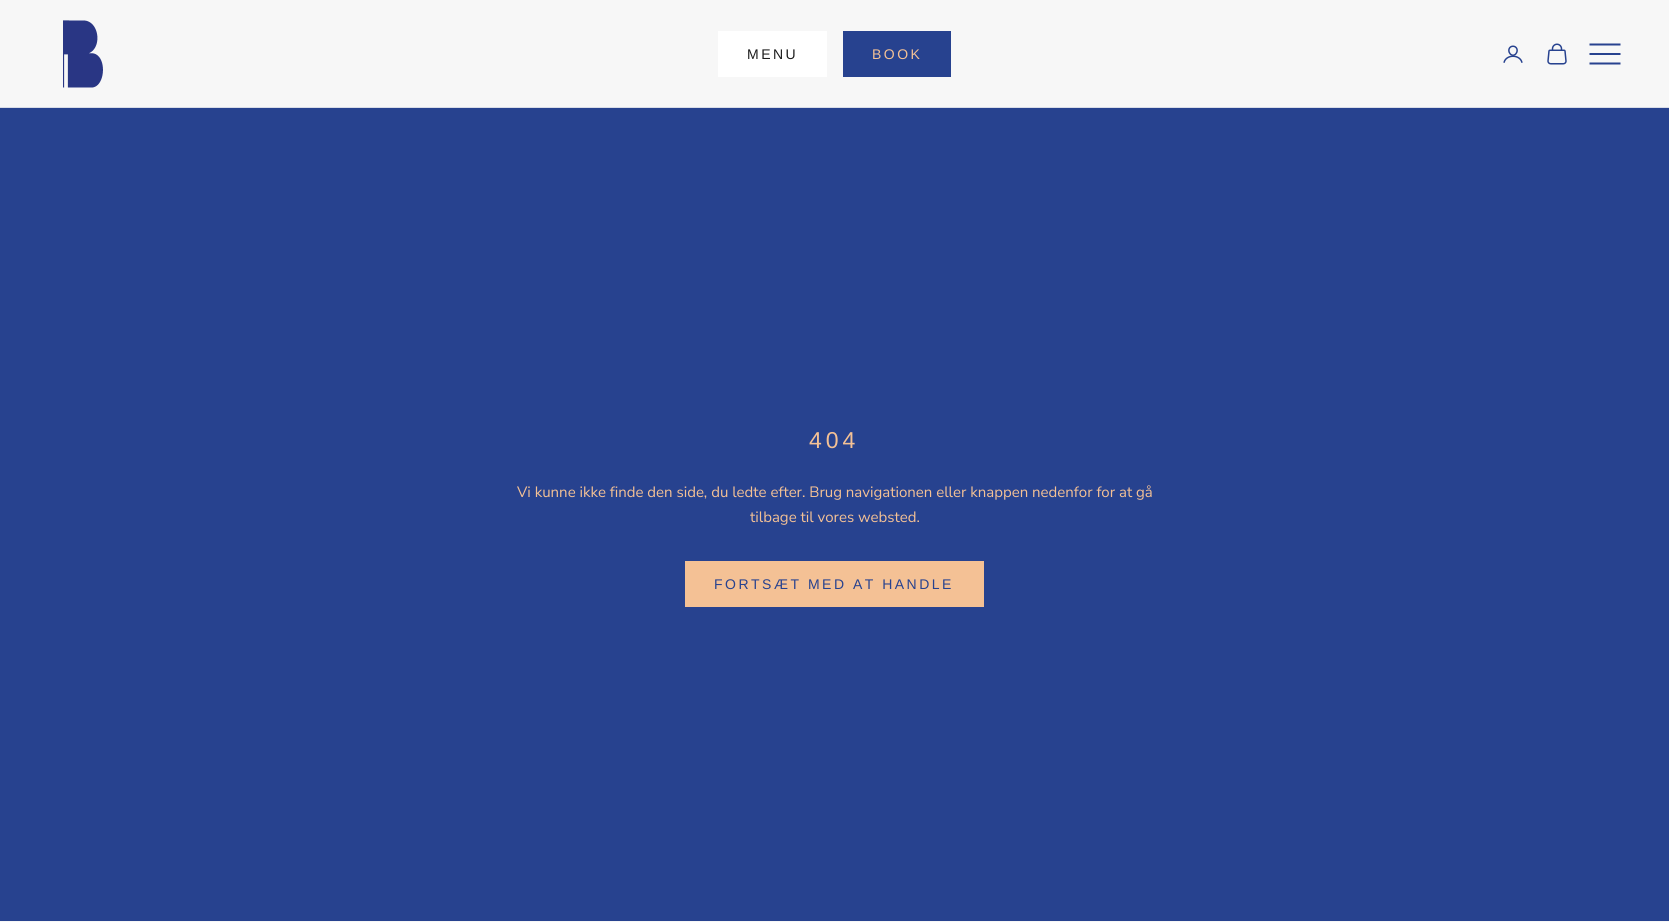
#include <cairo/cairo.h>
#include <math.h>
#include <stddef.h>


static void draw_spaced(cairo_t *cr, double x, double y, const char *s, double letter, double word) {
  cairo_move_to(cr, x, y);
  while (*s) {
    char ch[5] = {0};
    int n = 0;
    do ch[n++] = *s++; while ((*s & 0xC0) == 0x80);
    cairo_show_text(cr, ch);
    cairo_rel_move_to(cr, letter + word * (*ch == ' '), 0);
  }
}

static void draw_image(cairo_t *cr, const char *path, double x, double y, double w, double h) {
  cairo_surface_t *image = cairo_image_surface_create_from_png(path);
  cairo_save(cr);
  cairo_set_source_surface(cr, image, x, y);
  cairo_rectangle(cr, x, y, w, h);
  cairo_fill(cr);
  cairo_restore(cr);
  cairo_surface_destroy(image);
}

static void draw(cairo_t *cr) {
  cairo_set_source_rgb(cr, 247 / 255.0, 247 / 255.0, 247 / 255.0);
  cairo_paint(cr);
  cairo_set_source_rgb(cr, 216 / 255.0, 220 / 255.0, 231 / 255.0);
  cairo_rectangle(cr, 0, 107, 1669, 1);
  cairo_fill(cr);
  draw_image(cr, "images/1.png", 63, 20, 40, 68);
  cairo_set_source_rgb(cr, 1, 1, 1);
  cairo_rectangle(cr, 718.5, 31.5, 108, 45);
  cairo_fill_preserve(cr);
  cairo_set_line_width(cr, 1);
  cairo_stroke(cr);
  cairo_set_source_rgb(cr, 39 / 255.0, 66 / 255.0, 143 / 255.0);
  cairo_rectangle(cr, 843.5, 31.5, 107, 45);
  cairo_fill_preserve(cr);
  cairo_stroke(cr);
  draw_image(cr, "images/2.png", 1503, 45, 20, 18);
  draw_image(cr, "images/3.png", 1547, 43, 20, 22);
  cairo_new_path(cr);
  cairo_move_to(cr, 1590.5, 63.5);
  cairo_line_to(cr, 1619.5, 63.5);
  cairo_move_to(cr, 1590.5, 54);
  cairo_line_to(cr, 1619.5, 54);
  cairo_move_to(cr, 1590.5, 44.5);
  cairo_line_to(cr, 1619.5, 44.5);
  cairo_set_line_width(cr, 2);
  cairo_set_line_cap(cr, CAIRO_LINE_CAP_SQUARE);
  cairo_stroke(cr);
  cairo_rectangle(cr, 0, 108, 1669, 813);
  cairo_fill(cr);
  cairo_set_source_rgb(cr, 244 / 255.0, 193 / 255.0, 149 / 255.0);
  cairo_rectangle(cr, 685.5, 561.5, 298, 45);
  cairo_fill_preserve(cr);
  cairo_set_line_width(cr, 1);
  cairo_set_line_cap(cr, CAIRO_LINE_CAP_BUTT);
  cairo_stroke(cr);
  cairo_select_font_face(cr, "Liberation Sans", CAIRO_FONT_SLANT_NORMAL, CAIRO_FONT_WEIGHT_NORMAL);
  cairo_set_font_size(cr, 14);
  cairo_set_source_rgb(cr, 28 / 255.0, 28 / 255.0, 28 / 255.0);
  draw_spaced(cr, 747, 59, "MENU", 2.5, 0);
  cairo_set_source_rgb(cr, 244 / 255.0, 193 / 255.0, 149 / 255.0);
  draw_spaced(cr, 872, 59, "BOOK", 2.5, 0);
  cairo_set_font_size(cr, 23);
  draw_spaced(cr, 809, 448, "404", 4, 0);
  cairo_select_font_face(cr, "Nunito Sans", CAIRO_FONT_SLANT_NORMAL, CAIRO_FONT_WEIGHT_NORMAL);
  cairo_set_font_size(cr, 15);
  cairo_move_to(cr, 517, 497);
  cairo_show_text(cr, "Vi kunne ikke finde den side, du ledte efter. Brug navigationen eller knappen nedenfor for at gå");
  cairo_move_to(cr, 750, 522);
  cairo_show_text(cr, "tilbage til vores websted.");
  cairo_select_font_face(cr, "Liberation Sans", CAIRO_FONT_SLANT_NORMAL, CAIRO_FONT_WEIGHT_NORMAL);
  cairo_set_font_size(cr, 14);
  cairo_set_source_rgb(cr, 39 / 255.0, 66 / 255.0, 143 / 255.0);
  draw_spaced(cr, 714, 589, "FORTSÆT MED AT HANDLE", 2.5, 0);
}

int main(void) {
  cairo_surface_t *surface = cairo_image_surface_create(CAIRO_FORMAT_RGB24, 1669, 922);
  cairo_t *cr = cairo_create(surface);
  cairo_font_options_t *options = cairo_font_options_create();
  cairo_font_options_set_hint_metrics(options, CAIRO_HINT_METRICS_OFF);
  cairo_font_options_set_hint_style(options, CAIRO_HINT_STYLE_NONE);
  cairo_set_font_options(cr, options);
  cairo_set_miter_limit(cr, 4);
  draw(cr);
  cairo_surface_write_to_png(surface, "out.png");
  cairo_font_options_destroy(options);
  cairo_destroy(cr);
  cairo_surface_destroy(surface);
  return 0;
}
